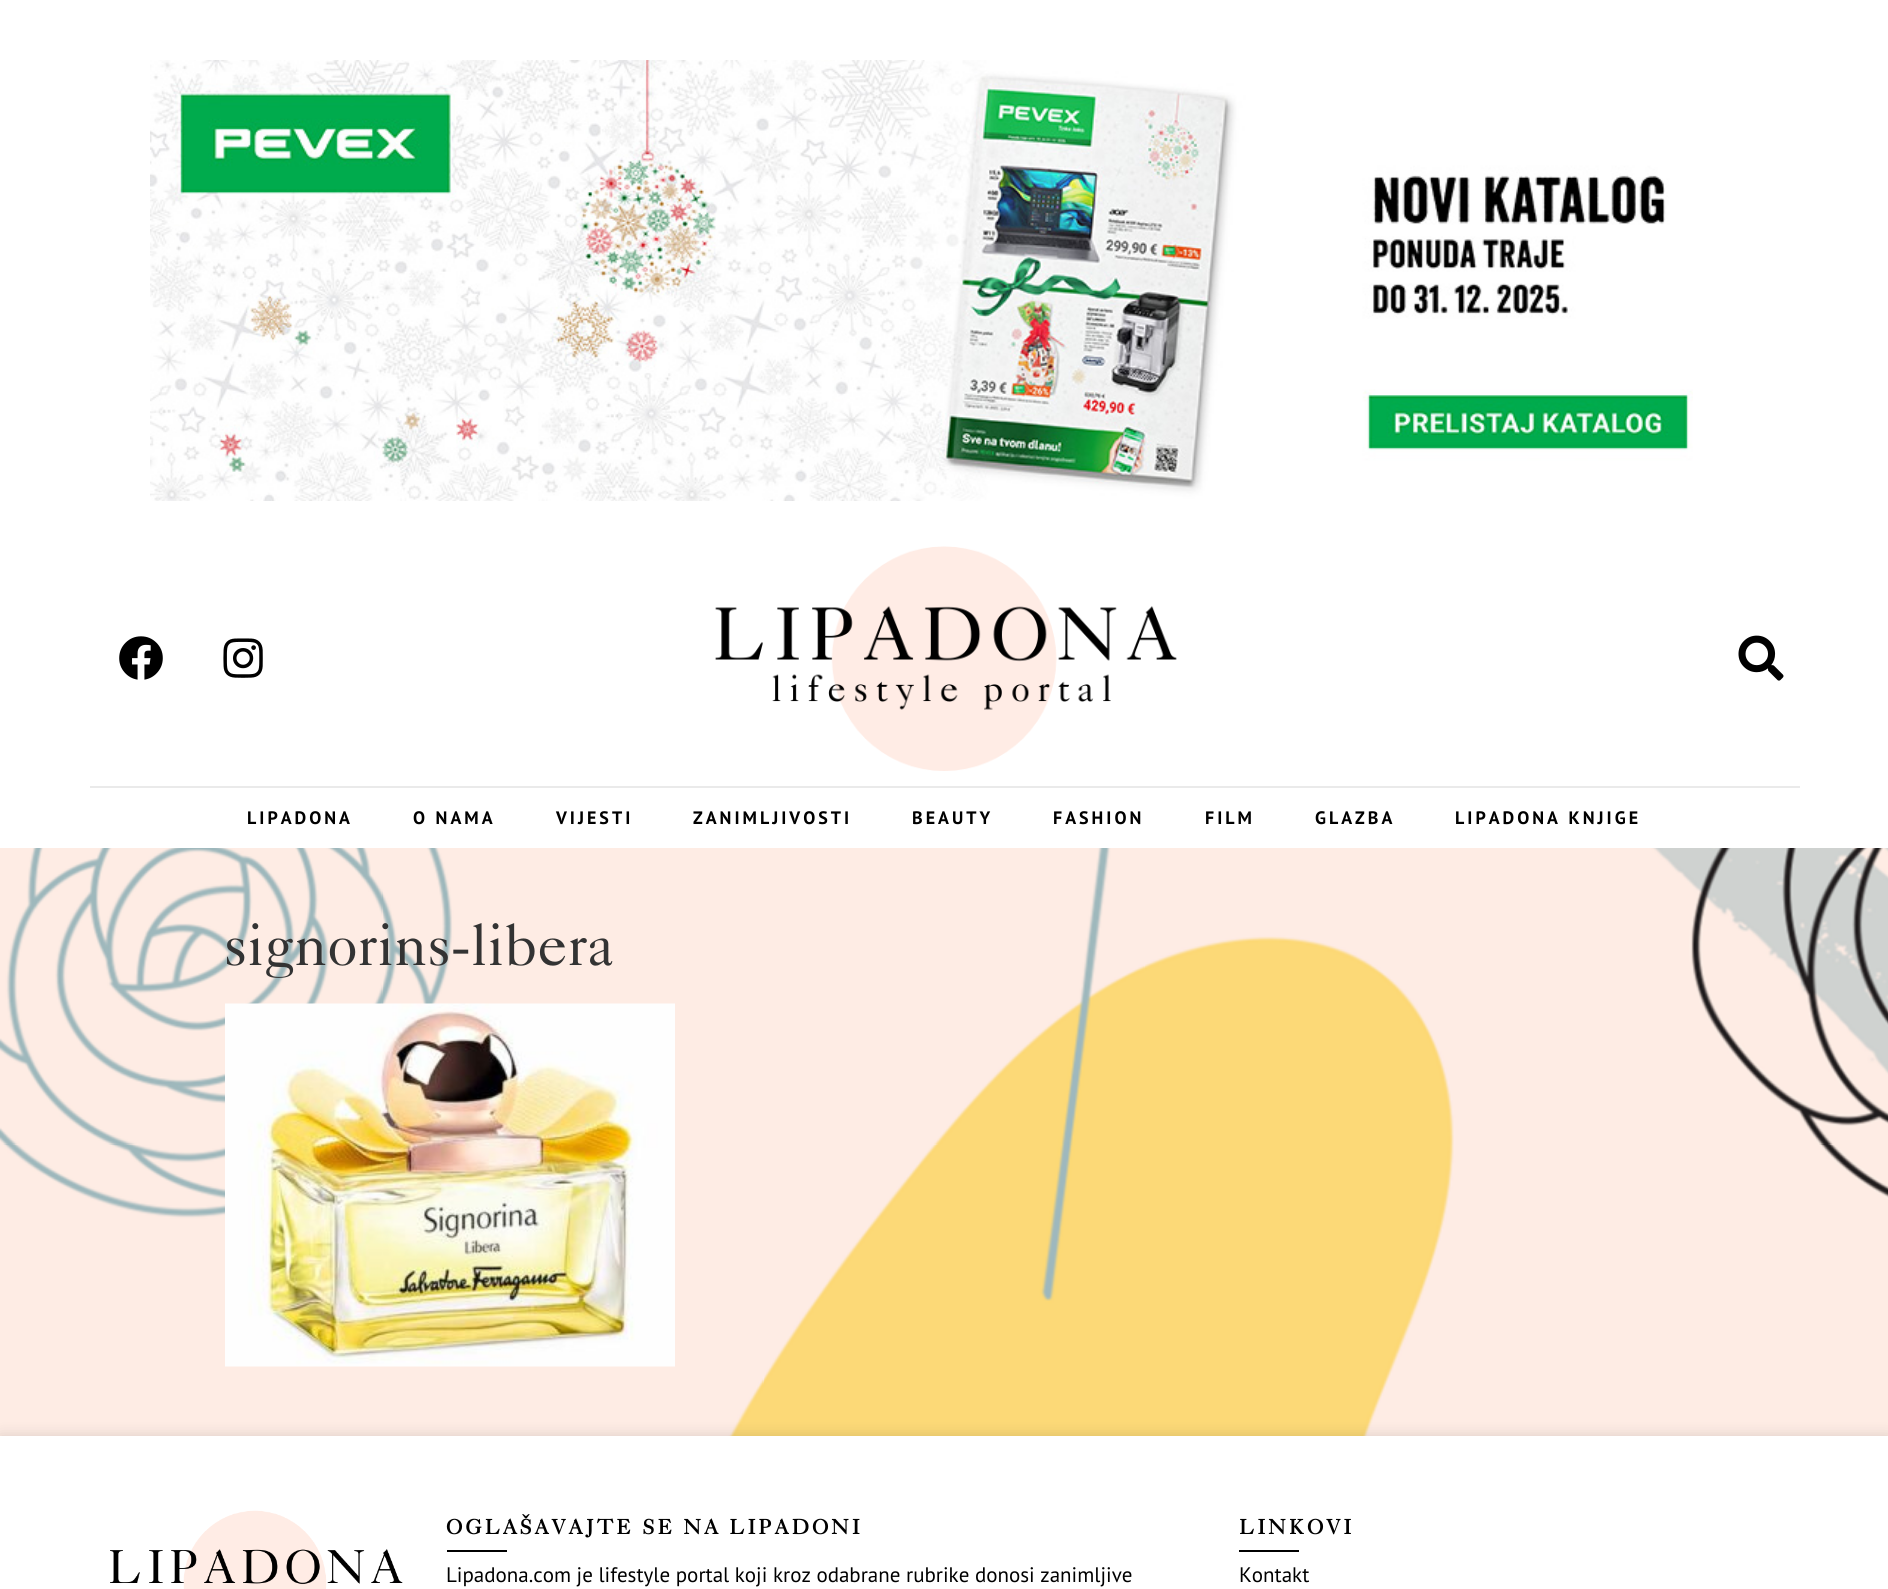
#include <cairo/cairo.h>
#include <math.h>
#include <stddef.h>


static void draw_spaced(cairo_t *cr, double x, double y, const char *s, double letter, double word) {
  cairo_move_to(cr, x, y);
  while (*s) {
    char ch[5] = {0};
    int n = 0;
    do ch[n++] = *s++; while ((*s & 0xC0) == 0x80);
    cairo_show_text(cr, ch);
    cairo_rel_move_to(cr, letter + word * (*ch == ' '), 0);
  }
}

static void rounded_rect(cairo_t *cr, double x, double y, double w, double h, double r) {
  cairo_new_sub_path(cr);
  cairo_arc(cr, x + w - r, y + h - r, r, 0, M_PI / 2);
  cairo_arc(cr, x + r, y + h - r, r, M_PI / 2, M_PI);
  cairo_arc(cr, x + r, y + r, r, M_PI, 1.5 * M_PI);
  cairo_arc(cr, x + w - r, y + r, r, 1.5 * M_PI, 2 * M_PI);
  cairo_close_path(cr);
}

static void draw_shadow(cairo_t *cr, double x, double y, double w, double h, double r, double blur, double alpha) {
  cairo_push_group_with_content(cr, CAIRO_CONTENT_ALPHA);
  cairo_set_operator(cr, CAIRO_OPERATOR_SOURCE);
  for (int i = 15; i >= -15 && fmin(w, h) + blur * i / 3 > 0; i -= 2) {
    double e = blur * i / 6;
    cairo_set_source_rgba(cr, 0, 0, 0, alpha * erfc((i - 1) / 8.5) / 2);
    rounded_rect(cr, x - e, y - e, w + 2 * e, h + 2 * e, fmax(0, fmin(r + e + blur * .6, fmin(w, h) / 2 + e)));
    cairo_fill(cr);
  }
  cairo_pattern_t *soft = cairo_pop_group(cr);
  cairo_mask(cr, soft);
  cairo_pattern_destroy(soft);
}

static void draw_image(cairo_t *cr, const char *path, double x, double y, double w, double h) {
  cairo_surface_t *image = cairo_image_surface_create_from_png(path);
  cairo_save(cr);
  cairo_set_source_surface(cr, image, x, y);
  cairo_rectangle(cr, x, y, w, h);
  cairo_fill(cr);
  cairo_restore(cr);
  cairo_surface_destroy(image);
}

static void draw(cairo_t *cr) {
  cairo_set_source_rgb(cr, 1, 1, 1);
  cairo_paint(cr);
  draw_image(cr, "images/1.png", 0, 848, 1888, 588);
  draw_image(cr, "images/2.png", 150, 60, 1543, 441);
  draw_image(cr, "images/3.png", 119, 636, 44, 44);
  draw_image(cr, "images/4.png", 223, 638, 40, 40);
  draw_image(cr, "images/5.png", 715, 546, 462, 225);
  draw_image(cr, "images/6.png", 1738, 635, 46, 46);
  cairo_set_source_rgb(cr, 234 / 255.0, 234 / 255.0, 234 / 255.0);
  cairo_rectangle(cr, 90, 786, 1710, 2);
  cairo_fill(cr);
  draw_image(cr, "images/7.png", 225, 1003, 450, 364);
  cairo_set_source_rgb(cr, 0, 0, 0);
  draw_shadow(cr, 0, 1436, 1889, 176, 0, 7.5, 0.14);
  cairo_set_source_rgb(cr, 1, 1, 1);
  cairo_rectangle(cr, 0, 1436, 1888, 153);
  cairo_fill(cr);
  draw_image(cr, "images/8.png", 110, 1510, 293, 79);
  cairo_set_source_rgb(cr, 0, 0, 0);
  cairo_rectangle(cr, 447, 1550, 60, 2);
  cairo_fill(cr);
  cairo_rectangle(cr, 1239, 1550, 60, 2);
  cairo_fill(cr);
  cairo_select_font_face(cr, "PT Sans", CAIRO_FONT_SLANT_NORMAL, CAIRO_FONT_WEIGHT_BOLD);
  cairo_set_font_size(cr, 18);
  draw_spaced(cr, 247, 824, "LIPADONA", 3, 0);
  draw_spaced(cr, 413, 824, "O NAMA", 3, 0);
  draw_spaced(cr, 556, 824, "VIJESTI", 3, 0);
  draw_spaced(cr, 693, 824, "ZANIMLJIVOSTI", 3, 0);
  draw_spaced(cr, 912, 824, "BEAUTY", 3, 0);
  draw_spaced(cr, 1053, 824, "FASHION", 3, 0);
  draw_spaced(cr, 1205, 824, "FILM", 3, 0);
  draw_spaced(cr, 1315, 824, "GLAZBA", 3, 0);
  draw_spaced(cr, 1455, 824, "LIPADONA KNJIGE", 3, 0);
  cairo_select_font_face(cr, "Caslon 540", CAIRO_FONT_SLANT_NORMAL, CAIRO_FONT_WEIGHT_NORMAL);
  cairo_set_font_size(cr, 60);
  cairo_set_source_rgb(cr, 51 / 255.0, 51 / 255.0, 51 / 255.0);
  cairo_move_to(cr, 224, 965);
  cairo_show_text(cr, "signorins-libera");
  cairo_select_font_face(cr, "Caslon 540", CAIRO_FONT_SLANT_NORMAL, CAIRO_FONT_WEIGHT_BOLD);
  cairo_set_font_size(cr, 21);
  cairo_set_source_rgb(cr, 0, 0, 0);
  draw_spaced(cr, 446, 1534, "OGLAŠAVAJTE SE NA LIPADONI", 3, 0);
  cairo_select_font_face(cr, "PT Sans", CAIRO_FONT_SLANT_NORMAL, CAIRO_FONT_WEIGHT_NORMAL);
  cairo_move_to(cr, 446, 1582);
  cairo_show_text(cr, "Lipadona.com je lifestyle portal koji kroz odabrane rubrike donosi zanimljive");
  cairo_select_font_face(cr, "Caslon 540", CAIRO_FONT_SLANT_NORMAL, CAIRO_FONT_WEIGHT_BOLD);
  draw_spaced(cr, 1239, 1534, "LINKOVI", 3, 0);
  cairo_select_font_face(cr, "PT Sans", CAIRO_FONT_SLANT_NORMAL, CAIRO_FONT_WEIGHT_NORMAL);
  cairo_move_to(cr, 1239, 1582);
  cairo_show_text(cr, "Kontakt");
}

int main(void) {
  cairo_surface_t *surface = cairo_image_surface_create(CAIRO_FORMAT_RGB24, 1888, 1589);
  cairo_t *cr = cairo_create(surface);
  cairo_font_options_t *options = cairo_font_options_create();
  cairo_font_options_set_hint_metrics(options, CAIRO_HINT_METRICS_OFF);
  cairo_font_options_set_hint_style(options, CAIRO_HINT_STYLE_NONE);
  cairo_set_font_options(cr, options);
  cairo_set_miter_limit(cr, 4);
  draw(cr);
  cairo_surface_write_to_png(surface, "out.png");
  cairo_font_options_destroy(options);
  cairo_destroy(cr);
  cairo_surface_destroy(surface);
  return 0;
}
